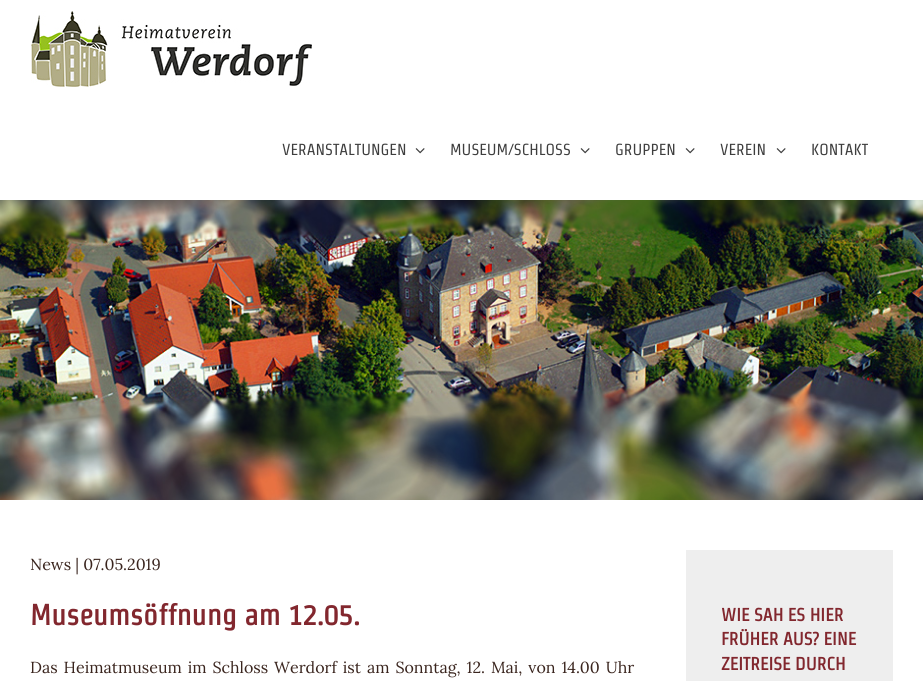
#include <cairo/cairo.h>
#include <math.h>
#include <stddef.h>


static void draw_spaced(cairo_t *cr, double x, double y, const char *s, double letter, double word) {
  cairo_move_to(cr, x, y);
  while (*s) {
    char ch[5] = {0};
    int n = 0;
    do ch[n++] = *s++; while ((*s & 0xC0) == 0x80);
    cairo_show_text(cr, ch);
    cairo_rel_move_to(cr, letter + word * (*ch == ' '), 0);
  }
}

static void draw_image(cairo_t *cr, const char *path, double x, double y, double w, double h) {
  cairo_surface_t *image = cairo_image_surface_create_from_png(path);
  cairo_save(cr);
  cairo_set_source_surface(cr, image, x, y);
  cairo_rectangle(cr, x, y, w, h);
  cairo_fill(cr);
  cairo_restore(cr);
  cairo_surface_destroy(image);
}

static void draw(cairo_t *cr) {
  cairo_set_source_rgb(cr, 1, 1, 1);
  cairo_paint(cr);
  draw_image(cr, "images/1.png", 31, 11, 281, 76);
  draw_image(cr, "images/2.png", 415, 148, 10, 6);
  draw_image(cr, "images/2.png", 580, 148, 10, 6);
  draw_image(cr, "images/2.png", 685, 148, 10, 6);
  draw_image(cr, "images/2.png", 776, 148, 10, 6);
  draw_image(cr, "images/3.png", 0, 200, 923, 300);
  cairo_set_source_rgb(cr, 238 / 255.0, 238 / 255.0, 238 / 255.0);
  cairo_rectangle(cr, 686, 550, 207, 131);
  cairo_fill(cr);
  cairo_select_font_face(cr, "Strait", CAIRO_FONT_SLANT_NORMAL, CAIRO_FONT_WEIGHT_NORMAL);
  cairo_set_font_size(cr, 16);
  cairo_set_source_rgb(cr, 62 / 255.0, 62 / 255.0, 62 / 255.0);
  cairo_move_to(cr, 282, 155);
  cairo_show_text(cr, "VERANSTALTUNGEN");
  cairo_move_to(cr, 450, 155);
  cairo_show_text(cr, "MUSEUM/SCHLOSS");
  cairo_move_to(cr, 615, 155);
  cairo_show_text(cr, "GRUPPEN");
  cairo_move_to(cr, 720, 155);
  cairo_show_text(cr, "VEREIN");
  cairo_move_to(cr, 811, 155);
  cairo_show_text(cr, "KONTAKT");
  cairo_select_font_face(cr, "Lora", CAIRO_FONT_SLANT_NORMAL, CAIRO_FONT_WEIGHT_NORMAL);
  cairo_set_source_rgb(cr, 58 / 255.0, 37 / 255.0, 30 / 255.0);
  cairo_move_to(cr, 30, 570);
  cairo_show_text(cr, "News | 07.05.2019");
  cairo_select_font_face(cr, "Strait", CAIRO_FONT_SLANT_NORMAL, CAIRO_FONT_WEIGHT_BOLD);
  cairo_set_font_size(cr, 29.1);
  cairo_set_source_rgb(cr, 130 / 255.0, 39 / 255.0, 46 / 255.0);
  cairo_move_to(cr, 30, 625);
  cairo_show_text(cr, "Museumsöffnung am 12.05.");
  cairo_select_font_face(cr, "Lora", CAIRO_FONT_SLANT_NORMAL, CAIRO_FONT_WEIGHT_NORMAL);
  cairo_set_font_size(cr, 16);
  cairo_set_source_rgb(cr, 58 / 255.0, 37 / 255.0, 30 / 255.0);
  draw_spaced(cr, 30, 673, "Das Heimatmuseum im Schloss Werdorf ist am Sonntag, 12. Mai, von 14.00 Uhr", 0, 1.75);
  cairo_select_font_face(cr, "Strait", CAIRO_FONT_SLANT_NORMAL, CAIRO_FONT_WEIGHT_BOLD);
  cairo_set_font_size(cr, 18);
  cairo_set_source_rgb(cr, 130 / 255.0, 39 / 255.0, 46 / 255.0);
  cairo_move_to(cr, 721, 621);
  cairo_show_text(cr, "WIE SAH ES HIER");
  cairo_move_to(cr, 721, 645);
  cairo_show_text(cr, "FRÜHER AUS? EINE");
  cairo_move_to(cr, 721, 670);
  cairo_show_text(cr, "ZEITREISE DURCH");
}

int main(void) {
  cairo_surface_t *surface = cairo_image_surface_create(CAIRO_FORMAT_RGB24, 923, 681);
  cairo_t *cr = cairo_create(surface);
  cairo_font_options_t *options = cairo_font_options_create();
  cairo_font_options_set_hint_metrics(options, CAIRO_HINT_METRICS_OFF);
  cairo_font_options_set_hint_style(options, CAIRO_HINT_STYLE_NONE);
  cairo_set_font_options(cr, options);
  cairo_set_miter_limit(cr, 4);
  draw(cr);
  cairo_surface_write_to_png(surface, "out.png");
  cairo_font_options_destroy(options);
  cairo_destroy(cr);
  cairo_surface_destroy(surface);
  return 0;
}
